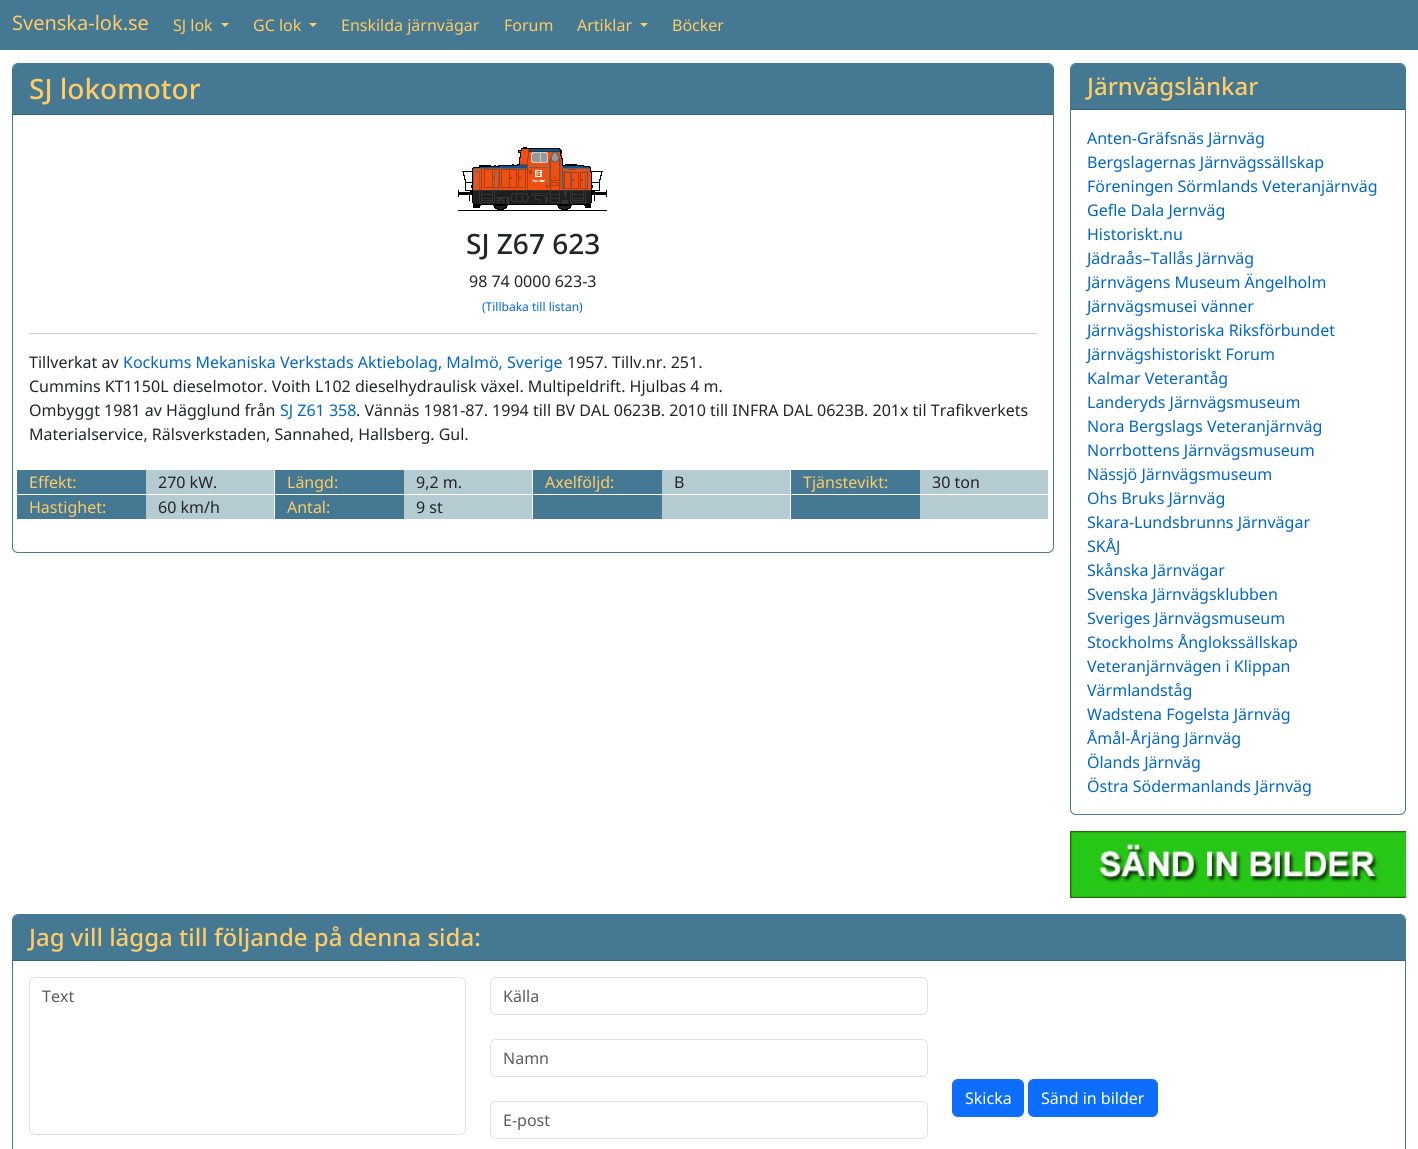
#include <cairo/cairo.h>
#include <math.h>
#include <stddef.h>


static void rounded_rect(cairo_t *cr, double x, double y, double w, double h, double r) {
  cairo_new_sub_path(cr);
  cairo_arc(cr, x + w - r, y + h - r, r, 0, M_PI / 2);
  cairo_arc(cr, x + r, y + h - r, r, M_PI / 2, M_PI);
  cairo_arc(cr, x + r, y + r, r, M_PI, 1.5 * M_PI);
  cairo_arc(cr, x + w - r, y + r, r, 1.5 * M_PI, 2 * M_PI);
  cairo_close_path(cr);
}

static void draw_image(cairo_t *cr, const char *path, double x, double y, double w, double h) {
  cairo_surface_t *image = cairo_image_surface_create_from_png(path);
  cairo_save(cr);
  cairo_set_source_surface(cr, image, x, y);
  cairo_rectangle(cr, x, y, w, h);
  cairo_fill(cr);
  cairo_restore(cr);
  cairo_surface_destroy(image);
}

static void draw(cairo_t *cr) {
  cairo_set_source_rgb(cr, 1, 1, 1);
  cairo_paint(cr);
  cairo_set_source_rgb(cr, 69 / 255.0, 120 / 255.0, 146 / 255.0);
  cairo_rectangle(cr, 0, 0, 1418, 50);
  cairo_fill(cr);
  cairo_set_source_rgb(cr, 1, 204 / 255.0, 102 / 255.0);
  cairo_new_path(cr);
  cairo_move_to(cr, 221, 23);
  cairo_line_to(cr, 229, 23);
  cairo_line_to(cr, 225, 27);
  cairo_close_path(cr);
  cairo_fill(cr);
  cairo_new_path(cr);
  cairo_move_to(cr, 309, 23);
  cairo_line_to(cr, 317, 23);
  cairo_line_to(cr, 313, 27);
  cairo_close_path(cr);
  cairo_fill(cr);
  cairo_new_path(cr);
  cairo_move_to(cr, 640, 23);
  cairo_line_to(cr, 648, 23);
  cairo_line_to(cr, 644, 27);
  cairo_close_path(cr);
  cairo_fill(cr);
  rounded_rect(cr, 12.5, 63.5, 1041, 489, 5.5);
  cairo_set_source_rgb(cr, 69 / 255.0, 120 / 255.0, 146 / 255.0);
  cairo_set_line_width(cr, 1);
  cairo_stroke(cr);
  cairo_new_path(cr);
  cairo_move_to(cr, 18, 64);
  cairo_line_to(cr, 1048, 64);
  cairo_curve_to(cr, 1051, 64, 1053, 66, 1053, 69);
  cairo_line_to(cr, 1053, 115);
  cairo_line_to(cr, 13, 115);
  cairo_line_to(cr, 13, 69);
  cairo_curve_to(cr, 13, 66, 15, 64, 18, 64);
  cairo_close_path(cr);
  cairo_fill(cr);
  cairo_set_source_rgb(cr, 57 / 255.0, 99 / 255.0, 120 / 255.0);
  cairo_rectangle(cr, 13, 114, 1040, 1);
  cairo_fill(cr);
  draw_image(cr, "images/1.png", 458, 147, 149, 64);
  cairo_set_source_rgb(cr, 200 / 255.0, 201 / 255.0, 202 / 255.0);
  cairo_rectangle(cr, 29, 333, 1008, 1);
  cairo_fill(cr);
  cairo_set_source_rgb(cr, 69 / 255.0, 120 / 255.0, 146 / 255.0);
  cairo_rectangle(cr, 17, 470, 129, 24);
  cairo_fill(cr);
  cairo_set_source_rgb(cr, 180 / 255.0, 203 / 255.0, 209 / 255.0);
  cairo_rectangle(cr, 146, 470, 128, 24);
  cairo_fill(cr);
  cairo_set_source_rgb(cr, 69 / 255.0, 120 / 255.0, 146 / 255.0);
  cairo_rectangle(cr, 275, 470, 129, 24);
  cairo_fill(cr);
  cairo_set_source_rgb(cr, 180 / 255.0, 203 / 255.0, 209 / 255.0);
  cairo_rectangle(cr, 404, 470, 128, 24);
  cairo_fill(cr);
  cairo_set_source_rgb(cr, 69 / 255.0, 120 / 255.0, 146 / 255.0);
  cairo_rectangle(cr, 533, 470, 129, 24);
  cairo_fill(cr);
  cairo_set_source_rgb(cr, 180 / 255.0, 203 / 255.0, 209 / 255.0);
  cairo_rectangle(cr, 662, 470, 128, 24);
  cairo_fill(cr);
  cairo_set_source_rgb(cr, 69 / 255.0, 120 / 255.0, 146 / 255.0);
  cairo_rectangle(cr, 791, 470, 129, 24);
  cairo_fill(cr);
  cairo_set_source_rgb(cr, 180 / 255.0, 203 / 255.0, 209 / 255.0);
  cairo_rectangle(cr, 920, 470, 128, 24);
  cairo_fill(cr);
  cairo_set_source_rgb(cr, 69 / 255.0, 120 / 255.0, 146 / 255.0);
  cairo_rectangle(cr, 17, 495, 129, 24);
  cairo_fill(cr);
  cairo_set_source_rgb(cr, 180 / 255.0, 203 / 255.0, 209 / 255.0);
  cairo_rectangle(cr, 146, 495, 128, 24);
  cairo_fill(cr);
  cairo_set_source_rgb(cr, 69 / 255.0, 120 / 255.0, 146 / 255.0);
  cairo_rectangle(cr, 275, 495, 129, 24);
  cairo_fill(cr);
  cairo_set_source_rgb(cr, 180 / 255.0, 203 / 255.0, 209 / 255.0);
  cairo_rectangle(cr, 404, 495, 128, 24);
  cairo_fill(cr);
  cairo_set_source_rgb(cr, 69 / 255.0, 120 / 255.0, 146 / 255.0);
  cairo_rectangle(cr, 533, 495, 129, 24);
  cairo_fill(cr);
  cairo_set_source_rgb(cr, 180 / 255.0, 203 / 255.0, 209 / 255.0);
  cairo_rectangle(cr, 662, 495, 128, 24);
  cairo_fill(cr);
  cairo_set_source_rgb(cr, 69 / 255.0, 120 / 255.0, 146 / 255.0);
  cairo_rectangle(cr, 791, 495, 129, 24);
  cairo_fill(cr);
  cairo_set_source_rgb(cr, 180 / 255.0, 203 / 255.0, 209 / 255.0);
  cairo_rectangle(cr, 920, 495, 128, 24);
  cairo_fill(cr);
  rounded_rect(cr, 1070.5, 63.5, 335, 751, 5.5);
  cairo_set_source_rgb(cr, 69 / 255.0, 120 / 255.0, 146 / 255.0);
  cairo_stroke(cr);
  cairo_new_path(cr);
  cairo_move_to(cr, 1076, 64);
  cairo_line_to(cr, 1400, 64);
  cairo_curve_to(cr, 1403, 64, 1405, 66, 1405, 69);
  cairo_line_to(cr, 1405, 110);
  cairo_line_to(cr, 1071, 110);
  cairo_line_to(cr, 1071, 69);
  cairo_curve_to(cr, 1071, 66, 1073, 64, 1076, 64);
  cairo_close_path(cr);
  cairo_fill(cr);
  cairo_set_source_rgb(cr, 57 / 255.0, 99 / 255.0, 120 / 255.0);
  cairo_rectangle(cr, 1071, 109, 334, 1);
  cairo_fill(cr);
  draw_image(cr, "images/2.png", 1070, 831, 336, 67);
  rounded_rect(cr, 12.5, 914.5, 1393, 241, 5.5);
  cairo_set_source_rgb(cr, 69 / 255.0, 120 / 255.0, 146 / 255.0);
  cairo_stroke(cr);
  cairo_new_path(cr);
  cairo_move_to(cr, 18, 915);
  cairo_line_to(cr, 1400, 915);
  cairo_curve_to(cr, 1403, 915, 1405, 917, 1405, 920);
  cairo_line_to(cr, 1405, 961);
  cairo_line_to(cr, 13, 961);
  cairo_line_to(cr, 13, 920);
  cairo_curve_to(cr, 13, 917, 15, 915, 18, 915);
  cairo_close_path(cr);
  cairo_fill(cr);
  cairo_set_source_rgb(cr, 57 / 255.0, 99 / 255.0, 120 / 255.0);
  cairo_rectangle(cr, 13, 960, 1392, 1);
  cairo_fill(cr);
  rounded_rect(cr, 29.5, 977.5, 436, 157, 5.5);
  cairo_set_source_rgb(cr, 222 / 255.0, 226 / 255.0, 230 / 255.0);
  cairo_stroke(cr);
  rounded_rect(cr, 490.5, 977.5, 437, 37, 5.5);
  cairo_stroke(cr);
  rounded_rect(cr, 490.5, 1039.5, 437, 37, 5.5);
  cairo_stroke(cr);
  rounded_rect(cr, 490.5, 1101.5, 437, 37, 5.5);
  cairo_stroke(cr);
  cairo_set_source_rgb(cr, 13 / 255.0, 110 / 255.0, 253 / 255.0);
  rounded_rect(cr, 952.5, 1079.5, 71, 37, 5.5);
  cairo_fill_preserve(cr);
  cairo_stroke(cr);
  rounded_rect(cr, 1028.5, 1079.5, 129, 37, 5.5);
  cairo_fill_preserve(cr);
  cairo_stroke(cr);
  cairo_select_font_face(cr, "Noto Sans", CAIRO_FONT_SLANT_NORMAL, CAIRO_FONT_WEIGHT_NORMAL);
  cairo_set_font_size(cr, 20);
  cairo_set_source_rgb(cr, 1, 204 / 255.0, 102 / 255.0);
  cairo_move_to(cr, 12, 30);
  cairo_show_text(cr, "Svenska-lok.se");
  cairo_set_font_size(cr, 16);
  cairo_move_to(cr, 173, 31);
  cairo_show_text(cr, "SJ lok");
  cairo_move_to(cr, 253, 31);
  cairo_show_text(cr, "GC lok");
  cairo_move_to(cr, 341, 31);
  cairo_show_text(cr, "Enskilda järnvägar");
  cairo_move_to(cr, 504, 31);
  cairo_show_text(cr, "Forum");
  cairo_move_to(cr, 577, 31);
  cairo_show_text(cr, "Artiklar");
  cairo_move_to(cr, 672, 31);
  cairo_show_text(cr, "Böcker");
  cairo_select_font_face(cr, "Noto Sans Medium", CAIRO_FONT_SLANT_NORMAL, CAIRO_FONT_WEIGHT_NORMAL);
  cairo_set_font_size(cr, 28);
  cairo_move_to(cr, 29, 99);
  cairo_show_text(cr, "SJ lokomotor");
  cairo_set_source_rgb(cr, 33 / 255.0, 37 / 255.0, 41 / 255.0);
  cairo_move_to(cr, 466, 254);
  cairo_show_text(cr, "SJ Z67 623");
  cairo_select_font_face(cr, "Noto Sans", CAIRO_FONT_SLANT_NORMAL, CAIRO_FONT_WEIGHT_NORMAL);
  cairo_set_font_size(cr, 16);
  cairo_move_to(cr, 469, 287);
  cairo_show_text(cr, "98 74 0000 623-3");
  cairo_set_font_size(cr, 12);
  cairo_set_source_rgb(cr, 0, 102 / 255.0, 204 / 255.0);
  cairo_move_to(cr, 482, 311);
  cairo_show_text(cr, "(Tillbaka till listan)");
  cairo_set_font_size(cr, 16);
  cairo_set_source_rgb(cr, 33 / 255.0, 37 / 255.0, 41 / 255.0);
  cairo_move_to(cr, 29, 368);
  cairo_show_text(cr, "Tillverkat av");
  cairo_set_source_rgb(cr, 0, 102 / 255.0, 204 / 255.0);
  cairo_move_to(cr, 123, 368);
  cairo_show_text(cr, "Kockums Mekaniska Verkstads Aktiebolag, Malmö, Sverige");
  cairo_set_source_rgb(cr, 33 / 255.0, 37 / 255.0, 41 / 255.0);
  cairo_move_to(cr, 567, 368);
  cairo_show_text(cr, "1957. Tillv.nr. 251.");
  cairo_move_to(cr, 29, 392);
  cairo_show_text(cr, "Cummins KT1150L dieselmotor. Voith L102 dieselhydraulisk växel. Multipeldrift. Hjulbas 4 m.");
  cairo_move_to(cr, 29, 416);
  cairo_show_text(cr, "Ombyggt 1981 av Hägglund från");
  cairo_set_source_rgb(cr, 0, 102 / 255.0, 204 / 255.0);
  cairo_move_to(cr, 280, 416);
  cairo_show_text(cr, "SJ Z61 358");
  cairo_set_source_rgb(cr, 33 / 255.0, 37 / 255.0, 41 / 255.0);
  cairo_move_to(cr, 356, 416);
  cairo_show_text(cr, ". Vännäs 1981-87. 1994 till BV DAL 0623B. 2010 till INFRA DAL 0623B. 201x til Trafikverkets");
  cairo_move_to(cr, 29, 440);
  cairo_show_text(cr, "Materialservice, Rälsverkstaden, Sannahed, Hallsberg. Gul.");
  cairo_set_source_rgb(cr, 1, 204 / 255.0, 102 / 255.0);
  cairo_move_to(cr, 29, 488);
  cairo_show_text(cr, "Effekt:");
  cairo_set_source_rgb(cr, 33 / 255.0, 37 / 255.0, 41 / 255.0);
  cairo_move_to(cr, 158, 488);
  cairo_show_text(cr, "270 kW.");
  cairo_set_source_rgb(cr, 1, 204 / 255.0, 102 / 255.0);
  cairo_move_to(cr, 287, 488);
  cairo_show_text(cr, "Längd:");
  cairo_set_source_rgb(cr, 33 / 255.0, 37 / 255.0, 41 / 255.0);
  cairo_move_to(cr, 416, 488);
  cairo_show_text(cr, "9,2 m.");
  cairo_set_source_rgb(cr, 1, 204 / 255.0, 102 / 255.0);
  cairo_move_to(cr, 545, 488);
  cairo_show_text(cr, "Axelföljd:");
  cairo_set_source_rgb(cr, 33 / 255.0, 37 / 255.0, 41 / 255.0);
  cairo_move_to(cr, 674, 488);
  cairo_show_text(cr, "B");
  cairo_set_source_rgb(cr, 1, 204 / 255.0, 102 / 255.0);
  cairo_move_to(cr, 803, 488);
  cairo_show_text(cr, "Tjänstevikt:");
  cairo_set_source_rgb(cr, 33 / 255.0, 37 / 255.0, 41 / 255.0);
  cairo_move_to(cr, 932, 488);
  cairo_show_text(cr, "30 ton");
  cairo_set_source_rgb(cr, 1, 204 / 255.0, 102 / 255.0);
  cairo_move_to(cr, 29, 513);
  cairo_show_text(cr, "Hastighet:");
  cairo_set_source_rgb(cr, 33 / 255.0, 37 / 255.0, 41 / 255.0);
  cairo_move_to(cr, 158, 513);
  cairo_show_text(cr, "60 km/h");
  cairo_set_source_rgb(cr, 1, 204 / 255.0, 102 / 255.0);
  cairo_move_to(cr, 287, 513);
  cairo_show_text(cr, "Antal:");
  cairo_set_source_rgb(cr, 33 / 255.0, 37 / 255.0, 41 / 255.0);
  cairo_move_to(cr, 416, 513);
  cairo_show_text(cr, "9 st");
  cairo_select_font_face(cr, "Noto Sans Medium", CAIRO_FONT_SLANT_NORMAL, CAIRO_FONT_WEIGHT_NORMAL);
  cairo_set_font_size(cr, 24);
  cairo_set_source_rgb(cr, 1, 204 / 255.0, 102 / 255.0);
  cairo_move_to(cr, 1087, 95);
  cairo_show_text(cr, "Järnvägslänkar");
  cairo_select_font_face(cr, "Noto Sans", CAIRO_FONT_SLANT_NORMAL, CAIRO_FONT_WEIGHT_NORMAL);
  cairo_set_font_size(cr, 16);
  cairo_set_source_rgb(cr, 0, 102 / 255.0, 204 / 255.0);
  cairo_move_to(cr, 1087, 144);
  cairo_show_text(cr, "Anten-Gräfsnäs Järnväg");
  cairo_move_to(cr, 1087, 168);
  cairo_show_text(cr, "Bergslagernas Järnvägssällskap");
  cairo_move_to(cr, 1087, 192);
  cairo_show_text(cr, "Föreningen Sörmlands Veteranjärnväg");
  cairo_move_to(cr, 1087, 216);
  cairo_show_text(cr, "Gefle Dala Jernväg");
  cairo_move_to(cr, 1087, 240);
  cairo_show_text(cr, "Historiskt.nu");
  cairo_move_to(cr, 1087, 264);
  cairo_show_text(cr, "Jädraås–Tallås Järnväg");
  cairo_move_to(cr, 1087, 288);
  cairo_show_text(cr, "Järnvägens Museum Ängelholm");
  cairo_move_to(cr, 1087, 312);
  cairo_show_text(cr, "Järnvägsmusei vänner");
  cairo_move_to(cr, 1087, 336);
  cairo_show_text(cr, "Järnvägshistoriska Riksförbundet");
  cairo_move_to(cr, 1087, 360);
  cairo_show_text(cr, "Järnvägshistoriskt Forum");
  cairo_move_to(cr, 1087, 384);
  cairo_show_text(cr, "Kalmar Veterantåg");
  cairo_move_to(cr, 1087, 408);
  cairo_show_text(cr, "Landeryds Järnvägsmuseum");
  cairo_move_to(cr, 1087, 432);
  cairo_show_text(cr, "Nora Bergslags Veteranjärnväg");
  cairo_move_to(cr, 1087, 456);
  cairo_show_text(cr, "Norrbottens Järnvägsmuseum");
  cairo_move_to(cr, 1087, 480);
  cairo_show_text(cr, "Nässjö Järnvägsmuseum");
  cairo_move_to(cr, 1087, 504);
  cairo_show_text(cr, "Ohs Bruks Järnväg");
  cairo_move_to(cr, 1087, 528);
  cairo_show_text(cr, "Skara-Lundsbrunns Järnvägar");
  cairo_move_to(cr, 1087, 552);
  cairo_show_text(cr, "SKÅJ");
  cairo_move_to(cr, 1087, 576);
  cairo_show_text(cr, "Skånska Järnvägar");
  cairo_move_to(cr, 1087, 600);
  cairo_show_text(cr, "Svenska Järnvägsklubben");
  cairo_move_to(cr, 1087, 624);
  cairo_show_text(cr, "Sveriges Järnvägsmuseum");
  cairo_move_to(cr, 1087, 648);
  cairo_show_text(cr, "Stockholms Ånglokssällskap");
  cairo_move_to(cr, 1087, 672);
  cairo_show_text(cr, "Veteranjärnvägen i Klippan");
  cairo_move_to(cr, 1087, 696);
  cairo_show_text(cr, "Värmlandståg");
  cairo_move_to(cr, 1087, 720);
  cairo_show_text(cr, "Wadstena Fogelsta Järnväg");
  cairo_move_to(cr, 1087, 744);
  cairo_show_text(cr, "Åmål-Årjäng Järnväg");
  cairo_move_to(cr, 1087, 768);
  cairo_show_text(cr, "Ölands Järnväg");
  cairo_move_to(cr, 1087, 792);
  cairo_show_text(cr, "Östra Södermanlands Järnväg");
  cairo_select_font_face(cr, "Noto Sans Medium", CAIRO_FONT_SLANT_NORMAL, CAIRO_FONT_WEIGHT_NORMAL);
  cairo_set_font_size(cr, 24);
  cairo_set_source_rgb(cr, 1, 204 / 255.0, 102 / 255.0);
  cairo_move_to(cr, 29, 946);
  cairo_show_text(cr, "Jag vill lägga till följande på denna sida:");
  cairo_select_font_face(cr, "Noto Sans", CAIRO_FONT_SLANT_NORMAL, CAIRO_FONT_WEIGHT_NORMAL);
  cairo_set_font_size(cr, 16);
  cairo_set_source_rgb(cr, 89 / 255.0, 92 / 255.0, 95 / 255.0);
  cairo_move_to(cr, 42, 1002);
  cairo_show_text(cr, "Text");
  cairo_move_to(cr, 503, 1002);
  cairo_show_text(cr, "Källa");
  cairo_move_to(cr, 503, 1064);
  cairo_show_text(cr, "Namn");
  cairo_move_to(cr, 503, 1126);
  cairo_show_text(cr, "E-post");
  cairo_set_source_rgb(cr, 1, 1, 1);
  cairo_move_to(cr, 965, 1104);
  cairo_show_text(cr, "Skicka");
  cairo_move_to(cr, 1041, 1104);
  cairo_show_text(cr, "Sänd in bilder");
}

int main(void) {
  cairo_surface_t *surface = cairo_image_surface_create(CAIRO_FORMAT_RGB24, 1418, 1149);
  cairo_t *cr = cairo_create(surface);
  cairo_font_options_t *options = cairo_font_options_create();
  cairo_font_options_set_hint_metrics(options, CAIRO_HINT_METRICS_OFF);
  cairo_font_options_set_hint_style(options, CAIRO_HINT_STYLE_NONE);
  cairo_set_font_options(cr, options);
  cairo_set_miter_limit(cr, 4);
  draw(cr);
  cairo_surface_write_to_png(surface, "out.png");
  cairo_font_options_destroy(options);
  cairo_destroy(cr);
  cairo_surface_destroy(surface);
  return 0;
}
